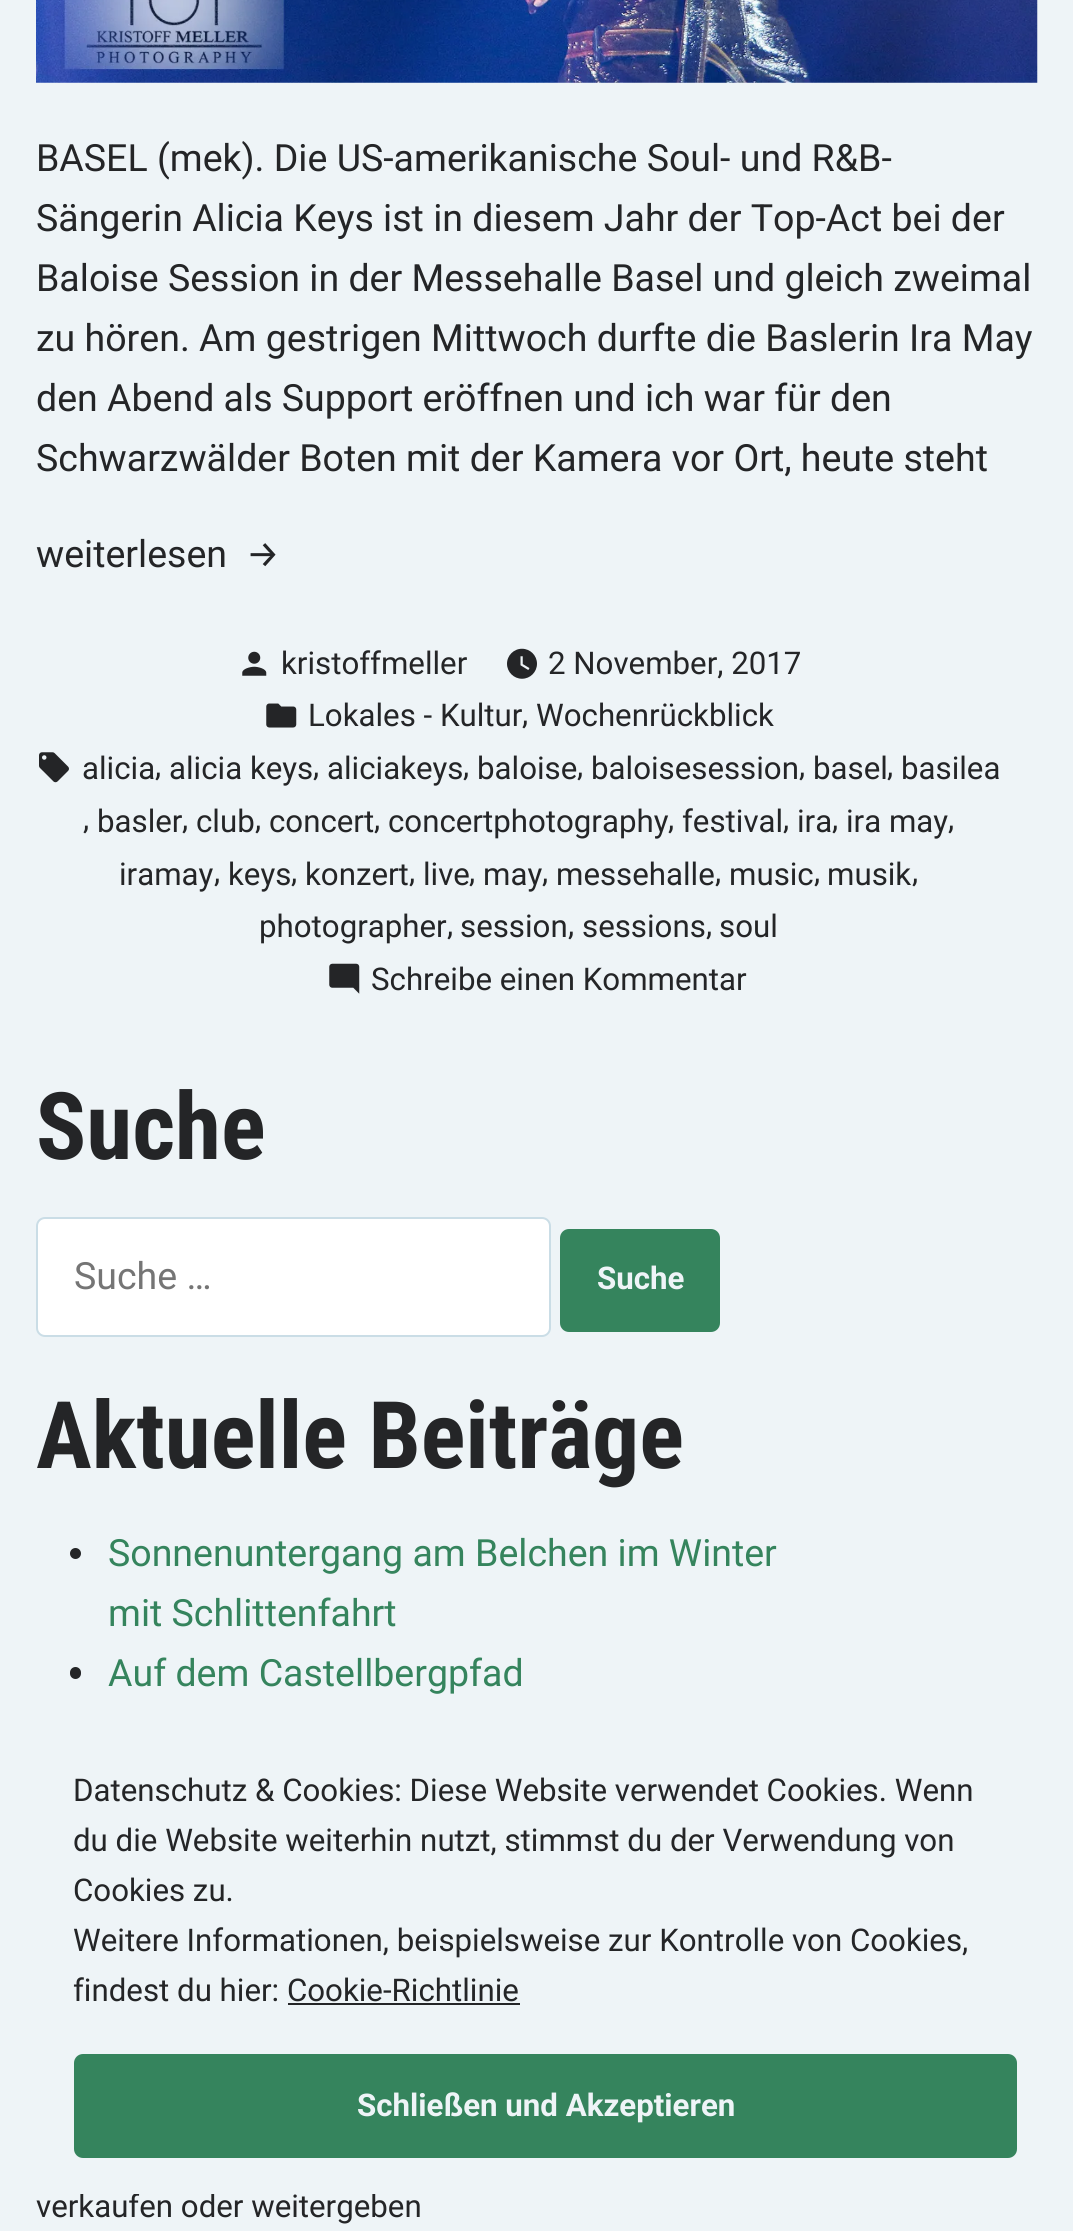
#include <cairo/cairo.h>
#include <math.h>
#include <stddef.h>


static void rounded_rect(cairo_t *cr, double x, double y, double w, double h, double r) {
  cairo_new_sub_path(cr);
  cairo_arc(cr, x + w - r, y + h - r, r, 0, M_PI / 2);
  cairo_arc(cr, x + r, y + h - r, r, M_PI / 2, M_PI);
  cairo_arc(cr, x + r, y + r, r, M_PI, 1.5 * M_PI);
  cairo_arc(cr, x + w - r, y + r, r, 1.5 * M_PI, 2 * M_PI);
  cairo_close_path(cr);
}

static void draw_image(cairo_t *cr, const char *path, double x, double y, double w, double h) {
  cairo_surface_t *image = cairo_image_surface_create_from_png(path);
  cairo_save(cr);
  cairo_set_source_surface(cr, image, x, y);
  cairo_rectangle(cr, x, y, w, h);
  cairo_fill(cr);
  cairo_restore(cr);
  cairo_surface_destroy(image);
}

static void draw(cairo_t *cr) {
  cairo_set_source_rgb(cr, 238 / 255.0, 244 / 255.0, 247 / 255.0);
  cairo_paint(cr);
  draw_image(cr, "images/1.png", 36, 0, 1002, 83);
  draw_image(cr, "images/2.png", 242, 651, 25, 25);
  draw_image(cr, "images/3.png", 507, 648, 30, 31);
  draw_image(cr, "images/4.png", 266, 703, 31, 25);
  draw_image(cr, "images/5.png", 39, 752, 30, 31);
  draw_image(cr, "images/6.png", 329, 963, 31, 31);
  cairo_set_source_rgb(cr, 1, 1, 1);
  rounded_rect(cr, 37, 1218, 513, 118, 8);
  cairo_fill_preserve(cr);
  cairo_set_source_rgb(cr, 202 / 255.0, 221 / 255.0, 230 / 255.0);
  cairo_stroke(cr);
  cairo_set_source_rgb(cr, 53 / 255.0, 132 / 255.0, 93 / 255.0);
  rounded_rect(cr, 560, 1229, 160, 103, 9);
  cairo_fill(cr);
  cairo_set_source_rgb(cr, 36 / 255.0, 37 / 255.0, 39 / 255.0);
  cairo_arc(cr, 75.5, 1553.5, 5.5, 0, 2 * M_PI);
  cairo_fill(cr);
  rounded_rect(cr, 70, 1667, 11, 12, 5.5);
  cairo_fill(cr);
  cairo_rectangle(cr, 288, 2003, 232, 2);
  cairo_fill(cr);
  cairo_set_source_rgb(cr, 53 / 255.0, 132 / 255.0, 93 / 255.0);
  rounded_rect(cr, 74, 2054, 943, 104, 9);
  cairo_fill(cr);
  cairo_select_font_face(cr, "Roboto", CAIRO_FONT_SLANT_NORMAL, CAIRO_FONT_WEIGHT_NORMAL);
  cairo_set_font_size(cr, 37.5);
  cairo_set_source_rgb(cr, 36 / 255.0, 37 / 255.0, 39 / 255.0);
  cairo_move_to(cr, 36, 171);
  cairo_show_text(cr, "BASEL (mek). Die US-amerikanische Soul- und R&B-");
  cairo_move_to(cr, 36, 231);
  cairo_show_text(cr, "Sängerin Alicia Keys ist in diesem Jahr der Top-Act bei der");
  cairo_move_to(cr, 36, 291);
  cairo_show_text(cr, "Baloise Session in der Messehalle Basel und gleich zweimal");
  cairo_move_to(cr, 36, 351);
  cairo_show_text(cr, "zu hören. Am gestrigen Mittwoch durfte die Baslerin Ira May");
  cairo_move_to(cr, 36, 411);
  cairo_show_text(cr, "den Abend als Support eröffnen und ich war für den");
  cairo_move_to(cr, 36, 471);
  cairo_show_text(cr, "Schwarzwälder Boten mit der Kamera vor Ort, heute steht");
  cairo_move_to(cr, 36, 567);
  cairo_show_text(cr, "weiterlesen");
  cairo_select_font_face(cr, "Fira Sans", CAIRO_FONT_SLANT_NORMAL, CAIRO_FONT_WEIGHT_NORMAL);
  cairo_move_to(cr, 246, 567);
  cairo_show_text(cr, "→");
  cairo_select_font_face(cr, "Roboto", CAIRO_FONT_SLANT_NORMAL, CAIRO_FONT_WEIGHT_NORMAL);
  cairo_set_font_size(cr, 31.25);
  cairo_move_to(cr, 281, 674);
  cairo_show_text(cr, "kristoffmeller");
  cairo_move_to(cr, 548, 674);
  cairo_show_text(cr, "2 November, 2017");
  cairo_move_to(cr, 308, 726);
  cairo_show_text(cr, "Lokales - Kultur");
  cairo_move_to(cr, 522, 724);
  cairo_show_text(cr, ",");
  cairo_move_to(cr, 536, 726);
  cairo_show_text(cr, "Wochenrückblick");
  cairo_move_to(cr, 82, 779);
  cairo_show_text(cr, "alicia");
  cairo_move_to(cr, 155, 776);
  cairo_show_text(cr, ",");
  cairo_move_to(cr, 169, 779);
  cairo_show_text(cr, "alicia keys");
  cairo_move_to(cr, 313, 776);
  cairo_show_text(cr, ",");
  cairo_move_to(cr, 327, 779);
  cairo_show_text(cr, "aliciakeys");
  cairo_move_to(cr, 463, 776);
  cairo_show_text(cr, ",");
  cairo_move_to(cr, 477, 779);
  cairo_show_text(cr, "baloise");
  cairo_move_to(cr, 577, 776);
  cairo_show_text(cr, ",");
  cairo_move_to(cr, 591, 779);
  cairo_show_text(cr, "baloisesession");
  cairo_move_to(cr, 799, 776);
  cairo_show_text(cr, ",");
  cairo_move_to(cr, 813, 779);
  cairo_show_text(cr, "basel");
  cairo_move_to(cr, 887, 776);
  cairo_show_text(cr, ",");
  cairo_move_to(cr, 901, 779);
  cairo_show_text(cr, "basilea");
  cairo_move_to(cr, 83, 829);
  cairo_show_text(cr, ",");
  cairo_move_to(cr, 97, 832);
  cairo_show_text(cr, "basler");
  cairo_move_to(cr, 182, 829);
  cairo_show_text(cr, ",");
  cairo_move_to(cr, 196, 832);
  cairo_show_text(cr, "club");
  cairo_move_to(cr, 255, 829);
  cairo_show_text(cr, ",");
  cairo_move_to(cr, 269, 832);
  cairo_show_text(cr, "concert");
  cairo_move_to(cr, 374, 829);
  cairo_show_text(cr, ",");
  cairo_move_to(cr, 388, 832);
  cairo_show_text(cr, "concertphotography");
  cairo_move_to(cr, 668, 829);
  cairo_show_text(cr, ",");
  cairo_move_to(cr, 682, 832);
  cairo_show_text(cr, "festival");
  cairo_move_to(cr, 783, 829);
  cairo_show_text(cr, ",");
  cairo_move_to(cr, 797, 832);
  cairo_show_text(cr, "ira");
  cairo_move_to(cr, 832, 829);
  cairo_show_text(cr, ",");
  cairo_move_to(cr, 846, 832);
  cairo_show_text(cr, "ira may");
  cairo_move_to(cr, 948, 829);
  cairo_show_text(cr, ",");
  cairo_move_to(cr, 119, 885);
  cairo_show_text(cr, "iramay");
  cairo_move_to(cr, 214, 882);
  cairo_show_text(cr, ",");
  cairo_move_to(cr, 228, 885);
  cairo_show_text(cr, "keys");
  cairo_move_to(cr, 291, 882);
  cairo_show_text(cr, ",");
  cairo_move_to(cr, 305, 885);
  cairo_show_text(cr, "konzert");
  cairo_move_to(cr, 409, 882);
  cairo_show_text(cr, ",");
  cairo_move_to(cr, 423, 885);
  cairo_show_text(cr, "live");
  cairo_move_to(cr, 469, 882);
  cairo_show_text(cr, ",");
  cairo_move_to(cr, 483, 885);
  cairo_show_text(cr, "may");
  cairo_move_to(cr, 542, 882);
  cairo_show_text(cr, ",");
  cairo_move_to(cr, 556, 885);
  cairo_show_text(cr, "messehalle");
  cairo_move_to(cr, 715, 882);
  cairo_show_text(cr, ",");
  cairo_move_to(cr, 729, 885);
  cairo_show_text(cr, "music");
  cairo_move_to(cr, 814, 882);
  cairo_show_text(cr, ",");
  cairo_move_to(cr, 827, 885);
  cairo_show_text(cr, "musik");
  cairo_move_to(cr, 912, 882);
  cairo_show_text(cr, ",");
  cairo_move_to(cr, 259, 937);
  cairo_show_text(cr, "photographer");
  cairo_move_to(cr, 447, 935);
  cairo_show_text(cr, ",");
  cairo_move_to(cr, 460, 937);
  cairo_show_text(cr, "session");
  cairo_move_to(cr, 568, 935);
  cairo_show_text(cr, ",");
  cairo_move_to(cr, 582, 937);
  cairo_show_text(cr, "sessions");
  cairo_move_to(cr, 706, 935);
  cairo_show_text(cr, ",");
  cairo_move_to(cr, 719, 937);
  cairo_show_text(cr, "soul");
  cairo_move_to(cr, 371, 990);
  cairo_show_text(cr, "Schreibe einen Kommentar");
  cairo_select_font_face(cr, "Roboto Condensed", CAIRO_FONT_SLANT_NORMAL, CAIRO_FONT_WEIGHT_BOLD);
  cairo_set_font_size(cr, 93.25);
  cairo_move_to(cr, 36, 1159);
  cairo_show_text(cr, "Suche");
  cairo_select_font_face(cr, "Roboto", CAIRO_FONT_SLANT_NORMAL, CAIRO_FONT_WEIGHT_NORMAL);
  cairo_set_font_size(cr, 37.5);
  cairo_set_source_rgb(cr, 117 / 255.0, 117 / 255.0, 117 / 255.0);
  cairo_move_to(cr, 74, 1289);
  cairo_show_text(cr, "Suche …");
  cairo_select_font_face(cr, "Roboto", CAIRO_FONT_SLANT_NORMAL, CAIRO_FONT_WEIGHT_BOLD);
  cairo_set_font_size(cr, 31.25);
  cairo_set_source_rgb(cr, 238 / 255.0, 244 / 255.0, 247 / 255.0);
  cairo_move_to(cr, 597, 1289);
  cairo_show_text(cr, "Suche");
  cairo_select_font_face(cr, "Roboto Condensed", CAIRO_FONT_SLANT_NORMAL, CAIRO_FONT_WEIGHT_BOLD);
  cairo_set_font_size(cr, 93.25);
  cairo_set_source_rgb(cr, 36 / 255.0, 37 / 255.0, 39 / 255.0);
  cairo_move_to(cr, 36, 1468);
  cairo_show_text(cr, "Aktuelle Beiträge");
  cairo_select_font_face(cr, "Roboto", CAIRO_FONT_SLANT_NORMAL, CAIRO_FONT_WEIGHT_NORMAL);
  cairo_set_font_size(cr, 37.5);
  cairo_set_source_rgb(cr, 53 / 255.0, 132 / 255.0, 93 / 255.0);
  cairo_move_to(cr, 108, 1566);
  cairo_show_text(cr, "Sonnenuntergang am Belchen im Winter");
  cairo_move_to(cr, 108, 1626);
  cairo_show_text(cr, "mit Schlittenfahrt");
  cairo_move_to(cr, 108, 1686);
  cairo_show_text(cr, "Auf dem Castellbergpfad");
  cairo_set_font_size(cr, 31.25);
  cairo_set_source_rgb(cr, 36 / 255.0, 37 / 255.0, 39 / 255.0);
  cairo_move_to(cr, 36, 2217);
  cairo_show_text(cr, "verkaufen oder weitergeben");
  cairo_set_source_rgb(cr, 238 / 255.0, 244 / 255.0, 247 / 255.0);
  cairo_rectangle(cr, 80, 2193, 296, 1);
  cairo_fill(cr);
  cairo_set_source_rgb(cr, 36 / 255.0, 37 / 255.0, 39 / 255.0);
  cairo_move_to(cr, 73, 1801);
  cairo_show_text(cr, "Datenschutz & Cookies: Diese Website verwendet Cookies. Wenn");
  cairo_move_to(cr, 73, 1851);
  cairo_show_text(cr, "du die Website weiterhin nutzt, stimmst du der Verwendung von");
  cairo_move_to(cr, 73, 1901);
  cairo_show_text(cr, "Cookies zu.");
  cairo_move_to(cr, 73, 1951);
  cairo_show_text(cr, "Weitere Informationen, beispielsweise zur Kontrolle von Cookies,");
  cairo_move_to(cr, 73, 2001);
  cairo_show_text(cr, "findest du hier: Cookie-Richtlinie");
  cairo_select_font_face(cr, "Roboto", CAIRO_FONT_SLANT_NORMAL, CAIRO_FONT_WEIGHT_BOLD);
  cairo_set_source_rgb(cr, 238 / 255.0, 244 / 255.0, 247 / 255.0);
  cairo_move_to(cr, 357, 2116);
  cairo_show_text(cr, "Schließen und Akzeptieren");
}

int main(void) {
  cairo_surface_t *surface = cairo_image_surface_create(CAIRO_FORMAT_RGB24, 1073, 2231);
  cairo_t *cr = cairo_create(surface);
  cairo_font_options_t *options = cairo_font_options_create();
  cairo_font_options_set_hint_metrics(options, CAIRO_HINT_METRICS_OFF);
  cairo_font_options_set_hint_style(options, CAIRO_HINT_STYLE_NONE);
  cairo_set_font_options(cr, options);
  cairo_set_miter_limit(cr, 4);
  draw(cr);
  cairo_surface_write_to_png(surface, "out.png");
  cairo_font_options_destroy(options);
  cairo_destroy(cr);
  cairo_surface_destroy(surface);
  return 0;
}
